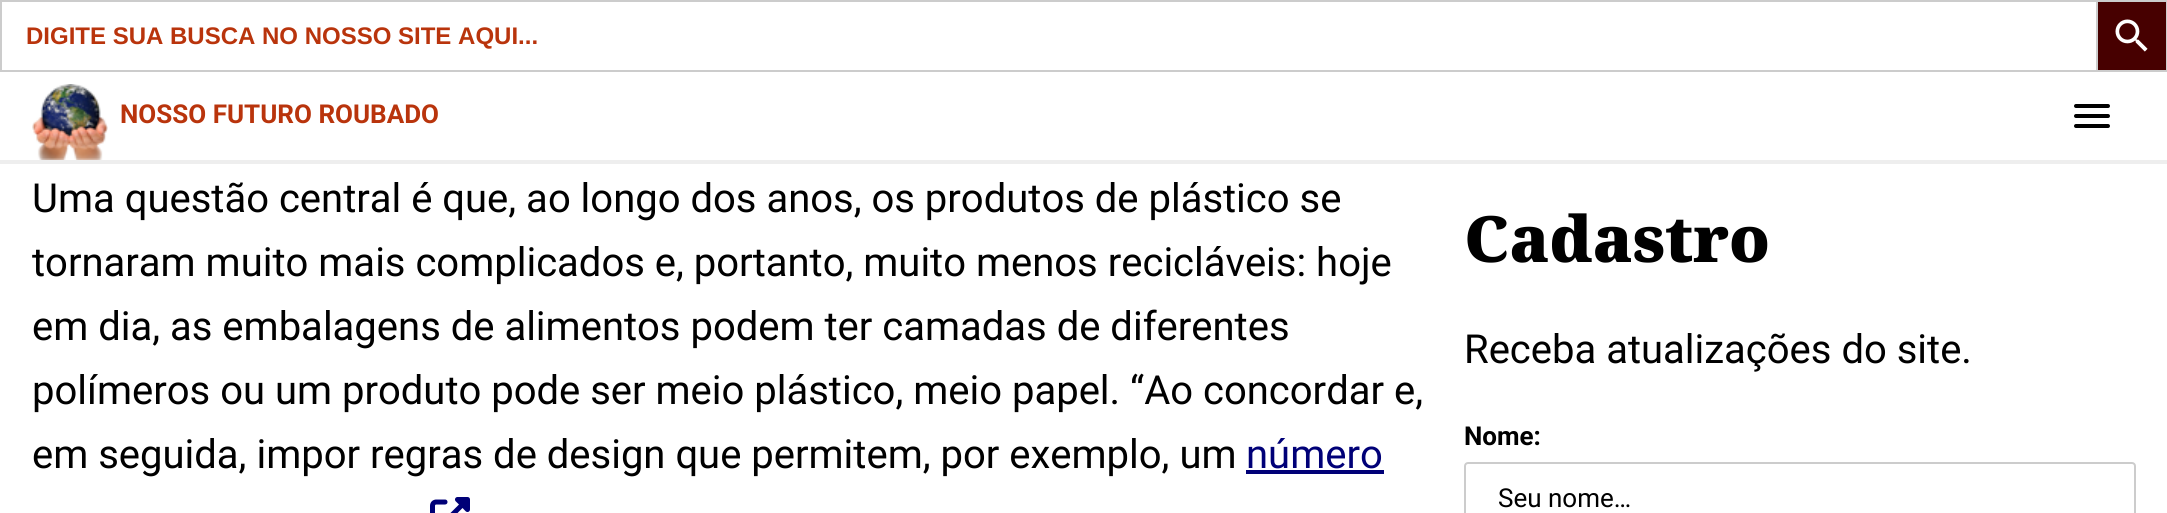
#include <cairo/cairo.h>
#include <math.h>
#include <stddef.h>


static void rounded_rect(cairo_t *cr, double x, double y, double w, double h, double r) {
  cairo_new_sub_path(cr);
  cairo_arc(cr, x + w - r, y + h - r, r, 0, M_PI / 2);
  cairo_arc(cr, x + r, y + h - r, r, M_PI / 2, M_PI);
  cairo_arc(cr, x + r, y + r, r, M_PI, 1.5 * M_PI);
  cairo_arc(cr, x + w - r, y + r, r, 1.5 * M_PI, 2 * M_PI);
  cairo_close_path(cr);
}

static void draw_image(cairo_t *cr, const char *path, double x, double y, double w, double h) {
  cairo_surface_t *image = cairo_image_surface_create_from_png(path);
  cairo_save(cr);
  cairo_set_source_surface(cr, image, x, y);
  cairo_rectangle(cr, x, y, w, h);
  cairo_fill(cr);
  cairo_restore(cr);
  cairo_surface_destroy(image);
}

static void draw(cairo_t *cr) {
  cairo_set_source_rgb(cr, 1, 1, 1);
  cairo_paint(cr);
  cairo_set_source_rgb(cr, 204 / 255.0, 204 / 255.0, 204 / 255.0);
  cairo_rectangle(cr, 0, 0, 2096, 2);
  cairo_fill(cr);
  cairo_rectangle(cr, 0, 70, 2096, 2);
  cairo_fill(cr);
  cairo_rectangle(cr, 0, 0, 2, 72);
  cairo_fill(cr);
  cairo_set_source_rgb(cr, 71 / 255.0, 0, 0);
  cairo_rectangle(cr, 2097, 1, 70, 70);
  cairo_fill_preserve(cr);
  cairo_set_source_rgb(cr, 204 / 255.0, 204 / 255.0, 204 / 255.0);
  cairo_stroke(cr);
  draw_image(cr, "images/1.png", 2115, 19, 33, 33);
  cairo_set_source_rgb(cr, 238 / 255.0, 238 / 255.0, 238 / 255.0);
  cairo_rectangle(cr, 0, 160, 2167, 4);
  cairo_fill(cr);
  draw_image(cr, "images/2.png", 32, 84, 76, 76);
  draw_image(cr, "images/3.png", 2074, 104, 36, 24);
  cairo_set_source_rgb(cr, 0, 0, 119 / 255.0);
  cairo_rectangle(cr, 1246, 470, 138, 4);
  cairo_fill(cr);
  draw_image(cr, "images/4.png", 430, 497, 40, 16);
  rounded_rect(cr, 1465, 463, 670, 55, 3);
  cairo_set_source_rgb(cr, 204 / 255.0, 204 / 255.0, 204 / 255.0);
  cairo_stroke(cr);
  cairo_select_font_face(cr, "Liberation Sans", CAIRO_FONT_SLANT_NORMAL, CAIRO_FONT_WEIGHT_BOLD);
  cairo_set_font_size(cr, 24);
  cairo_set_source_rgb(cr, 185 / 255.0, 52 / 255.0, 12 / 255.0);
  cairo_move_to(cr, 26, 44);
  cairo_show_text(cr, "DIGITE SUA BUSCA NO NOSSO SITE AQUI...");
  cairo_select_font_face(cr, "Roboto", CAIRO_FONT_SLANT_NORMAL, CAIRO_FONT_WEIGHT_BOLD);
  cairo_set_font_size(cr, 26);
  cairo_move_to(cr, 120, 123);
  cairo_show_text(cr, "NOSSO FUTURO ROUBADO");
  cairo_select_font_face(cr, "Roboto", CAIRO_FONT_SLANT_NORMAL, CAIRO_FONT_WEIGHT_NORMAL);
  cairo_set_font_size(cr, 40);
  cairo_set_source_rgb(cr, 0, 0, 0);
  cairo_move_to(cr, 32, 212);
  cairo_show_text(cr, "Uma questão central é que, ao longo dos anos, os produtos de plástico se");
  cairo_move_to(cr, 32, 276);
  cairo_show_text(cr, "tornaram muito mais complicados e, portanto, muito menos recicláveis: hoje");
  cairo_move_to(cr, 32, 340);
  cairo_show_text(cr, "em dia, as embalagens de alimentos podem ter camadas de diferentes");
  cairo_move_to(cr, 32, 404);
  cairo_show_text(cr, "polímeros ou um produto pode ser meio plástico, meio papel. “Ao concordar e,");
  cairo_move_to(cr, 32, 468);
  cairo_show_text(cr, "em seguida, impor regras de design que permitem, por exemplo, um");
  cairo_set_source_rgb(cr, 0, 0, 119 / 255.0);
  cairo_move_to(cr, 1246, 468);
  cairo_show_text(cr, "número");
  cairo_select_font_face(cr, "Noto Serif Black", CAIRO_FONT_SLANT_NORMAL, CAIRO_FONT_WEIGHT_NORMAL);
  cairo_set_font_size(cr, 64);
  cairo_set_source_rgb(cr, 0, 0, 0);
  cairo_move_to(cr, 1464, 262);
  cairo_show_text(cr, "Cadastro");
  cairo_select_font_face(cr, "Roboto", CAIRO_FONT_SLANT_NORMAL, CAIRO_FONT_WEIGHT_NORMAL);
  cairo_set_font_size(cr, 40);
  cairo_move_to(cr, 1464, 363);
  cairo_show_text(cr, "Receba atualizações do site.");
  cairo_select_font_face(cr, "Roboto", CAIRO_FONT_SLANT_NORMAL, CAIRO_FONT_WEIGHT_BOLD);
  cairo_set_font_size(cr, 26);
  cairo_move_to(cr, 1464, 445);
  cairo_show_text(cr, "Nome:");
  cairo_select_font_face(cr, "Roboto", CAIRO_FONT_SLANT_NORMAL, CAIRO_FONT_WEIGHT_NORMAL);
  cairo_move_to(cr, 1498, 507);
  cairo_show_text(cr, "Seu nome…");
}

int main(void) {
  cairo_surface_t *surface = cairo_image_surface_create(CAIRO_FORMAT_RGB24, 2167, 513);
  cairo_t *cr = cairo_create(surface);
  cairo_font_options_t *options = cairo_font_options_create();
  cairo_font_options_set_hint_metrics(options, CAIRO_HINT_METRICS_OFF);
  cairo_font_options_set_hint_style(options, CAIRO_HINT_STYLE_NONE);
  cairo_set_font_options(cr, options);
  cairo_set_miter_limit(cr, 4);
  draw(cr);
  cairo_surface_write_to_png(surface, "out.png");
  cairo_font_options_destroy(options);
  cairo_destroy(cr);
  cairo_surface_destroy(surface);
  return 0;
}
